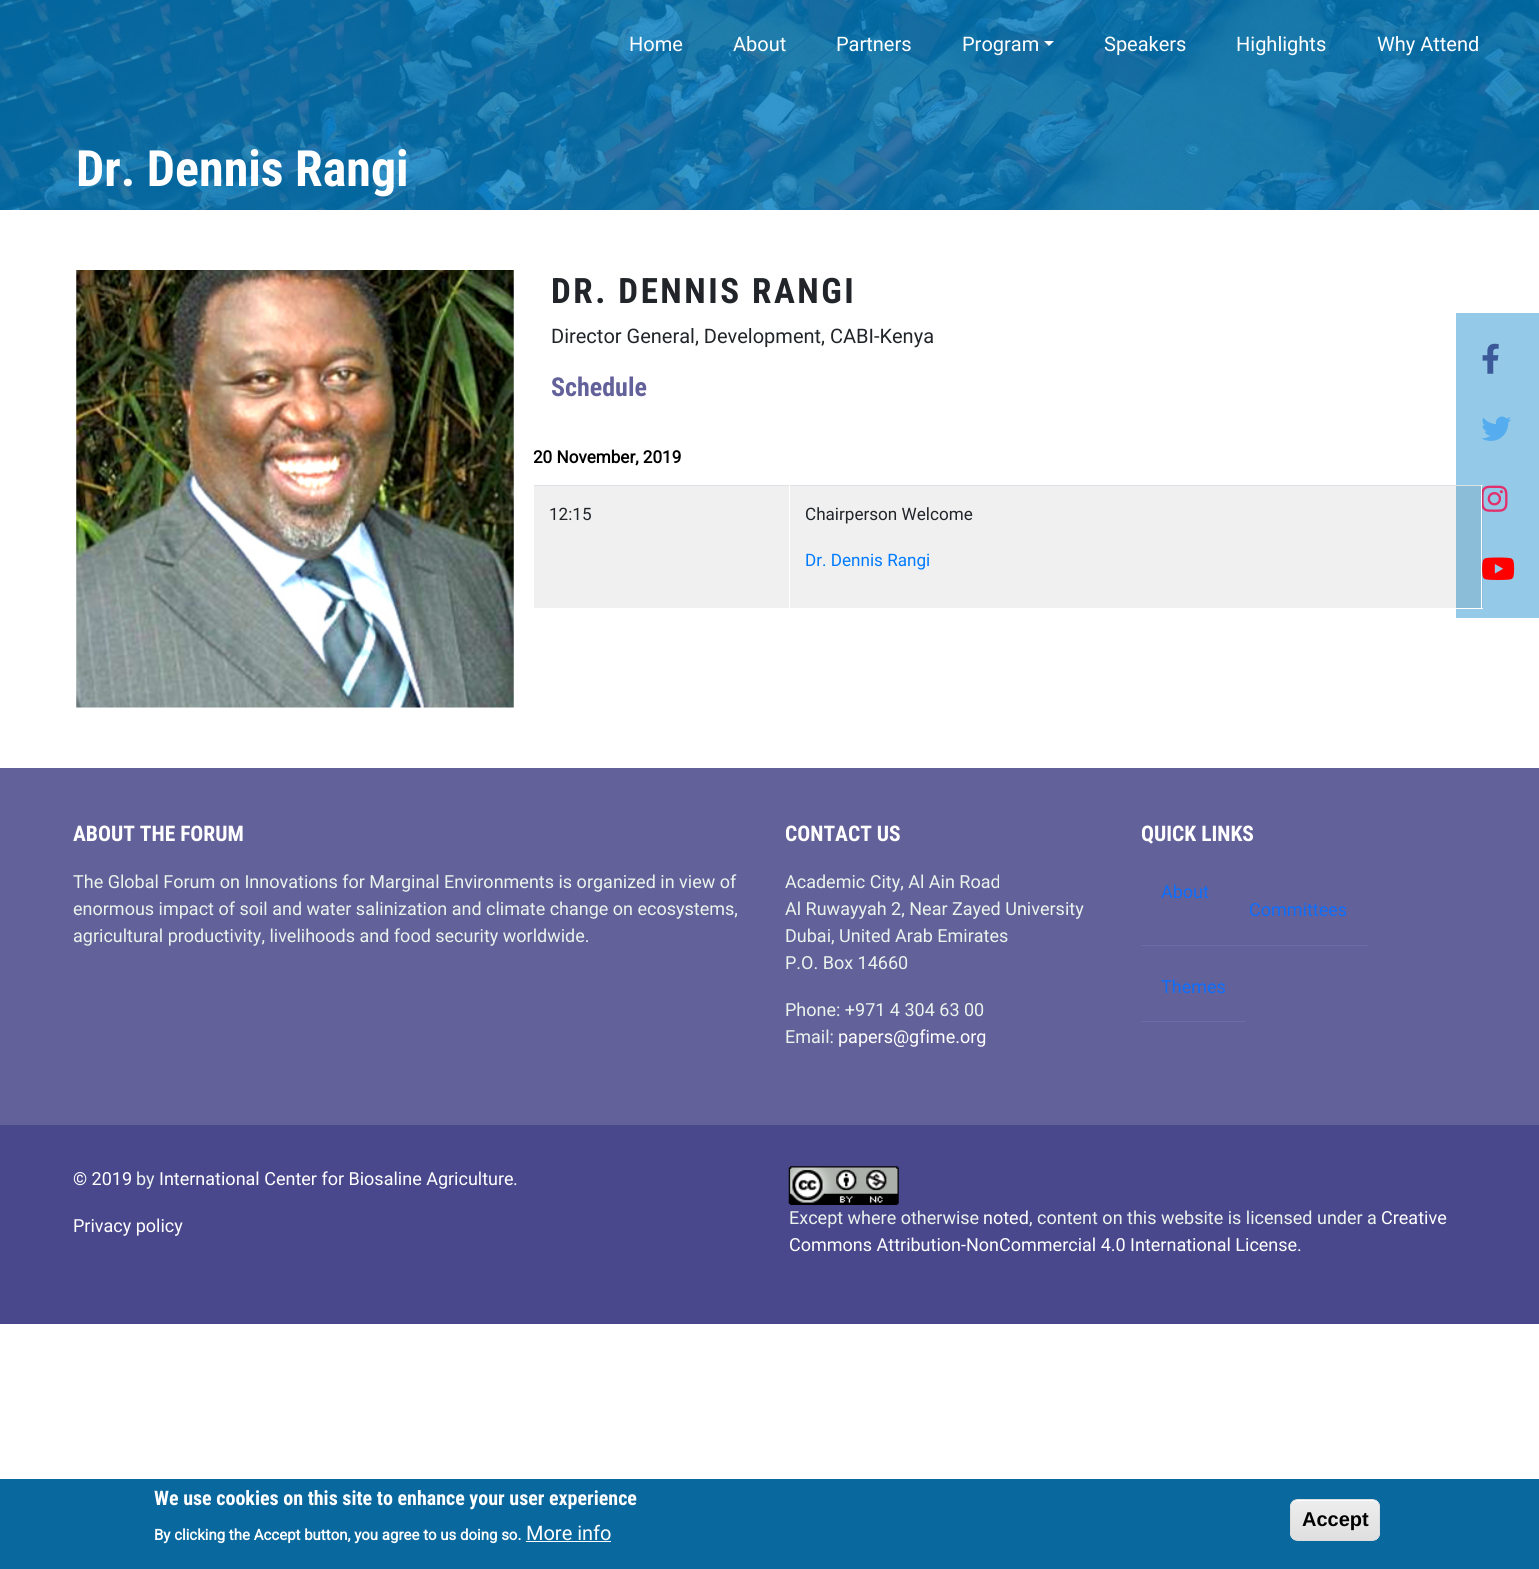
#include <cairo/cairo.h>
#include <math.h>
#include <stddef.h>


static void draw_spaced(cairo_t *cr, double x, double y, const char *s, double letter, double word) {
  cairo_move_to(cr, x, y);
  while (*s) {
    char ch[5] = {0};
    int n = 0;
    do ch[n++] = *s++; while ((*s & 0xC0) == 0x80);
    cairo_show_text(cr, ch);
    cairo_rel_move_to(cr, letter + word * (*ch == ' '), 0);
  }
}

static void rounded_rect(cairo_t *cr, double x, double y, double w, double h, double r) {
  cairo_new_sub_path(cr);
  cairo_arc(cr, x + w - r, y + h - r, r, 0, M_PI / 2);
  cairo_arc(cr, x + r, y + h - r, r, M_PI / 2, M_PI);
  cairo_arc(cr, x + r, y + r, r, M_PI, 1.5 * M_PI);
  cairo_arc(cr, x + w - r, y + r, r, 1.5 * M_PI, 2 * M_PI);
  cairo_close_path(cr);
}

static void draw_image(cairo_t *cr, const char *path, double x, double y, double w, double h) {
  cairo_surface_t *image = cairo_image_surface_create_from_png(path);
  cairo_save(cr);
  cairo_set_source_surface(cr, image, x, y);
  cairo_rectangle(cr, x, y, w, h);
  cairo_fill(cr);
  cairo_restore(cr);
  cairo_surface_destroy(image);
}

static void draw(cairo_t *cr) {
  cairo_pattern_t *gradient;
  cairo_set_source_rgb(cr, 1, 1, 1);
  cairo_paint(cr);
  draw_image(cr, "images/1.png", 0, 0, 1539, 210);
  cairo_set_source_rgb(cr, 1, 1, 1);
  cairo_new_path(cr);
  cairo_move_to(cr, 1044, 41);
  cairo_line_to(cr, 1054, 41);
  cairo_line_to(cr, 1049, 46);
  cairo_close_path(cr);
  cairo_fill(cr);
  draw_image(cr, "images/2.png", 76, 270, 438, 438);
  cairo_set_source_rgb(cr, 148 / 255.0, 201 / 255.0, 231 / 255.0);
  cairo_rectangle(cr, 1456, 313, 83, 305);
  cairo_fill(cr);
  draw_image(cr, "images/5.png", 1482, 485, 26, 27);
  draw_image(cr, "images/6.png", 1482, 557, 33, 23);
  cairo_set_source_rgba(cr, 0, 0, 0, 0.06);
  cairo_rectangle(cr, 534, 486, 949, 122);
  cairo_fill(cr);
  cairo_set_source_rgb(cr, 222 / 255.0, 226 / 255.0, 230 / 255.0);
  cairo_rectangle(cr, 533, 485, 950, 1);
  cairo_fill(cr);
  cairo_set_source_rgb(cr, 1, 1, 1);
  cairo_rectangle(cr, 789, 485, 1, 124);
  cairo_fill(cr);
  cairo_rectangle(cr, 533, 485, 1, 1);
  cairo_fill(cr);
  cairo_rectangle(cr, 1481, 485, 1, 124);
  cairo_fill(cr);
  cairo_rectangle(cr, 1456, 608, 27, 1);
  cairo_fill(cr);
  draw_image(cr, "images/3.png", 1482, 343, 17, 31);
  draw_image(cr, "images/4.png", 1481, 416, 30, 25);
  cairo_set_source_rgb(cr, 99 / 255.0, 97 / 255.0, 154 / 255.0);
  cairo_rectangle(cr, 0, 768, 1539, 357);
  cairo_fill(cr);
  cairo_set_source_rgb(cr, 110 / 255.0, 108 / 255.0, 167 / 255.0);
  cairo_rectangle(cr, 1141, 945, 227, 1);
  cairo_fill(cr);
  cairo_rectangle(cr, 1141, 1021, 105, 1);
  cairo_fill(cr);
  cairo_set_source_rgb(cr, 74 / 255.0, 72 / 255.0, 140 / 255.0);
  cairo_rectangle(cr, 0, 1125, 1539, 199);
  cairo_fill(cr);
  draw_image(cr, "images/7.png", 788, 1166, 111, 39);
  cairo_set_source_rgb(cr, 9 / 255.0, 104 / 255.0, 158 / 255.0);
  cairo_rectangle(cr, 0, 1479, 1539, 90);
  cairo_fill(cr);
  cairo_set_source_rgb(cr, 1, 1, 1);
  cairo_rectangle(cr, 526, 1541, 85, 1);
  cairo_fill(cr);
  cairo_save(cr);
  rounded_rect(cr, 1290, 1499, 90, 42, 8);
  cairo_clip(cr);
  gradient = cairo_pattern_create_linear(1335, 1500, 1335, 1540);
  cairo_pattern_add_color_stop_rgba(gradient, 0.05, 237 / 255.0, 237 / 255.0, 237 / 255.0, 1);
  cairo_pattern_add_color_stop_rgba(gradient, 1, 223 / 255.0, 223 / 255.0, 223 / 255.0, 1);
  cairo_set_source(cr, gradient);
  cairo_pattern_destroy(gradient);
  cairo_rectangle(cr, 1290, 1500, 90, 40);
  cairo_fill(cr);
  cairo_restore(cr);
  cairo_new_path(cr);
  cairo_move_to(cr, 1298, 1501);
  cairo_line_to(cr, 1372, 1501);
  cairo_curve_to(cr, 1376, 1501, 1379, 1504, 1379, 1508);
  cairo_curve_to(cr, 1379, 1497, 1369, 1500, 1360, 1500);
  cairo_line_to(cr, 1310, 1500);
  cairo_curve_to(cr, 1301, 1500, 1291, 1497, 1291, 1508);
  cairo_curve_to(cr, 1291, 1504, 1294, 1501, 1298, 1501);
  cairo_close_path(cr);
  cairo_fill(cr);
  rounded_rect(cr, 1290.5, 1499.5, 89, 41, 7.5);
  cairo_set_source_rgb(cr, 220 / 255.0, 220 / 255.0, 220 / 255.0);
  cairo_set_line_width(cr, 1);
  cairo_stroke(cr);
  cairo_select_font_face(cr, "Roboto", CAIRO_FONT_SLANT_NORMAL, CAIRO_FONT_WEIGHT_NORMAL);
  cairo_set_font_size(cr, 20);
  cairo_set_source_rgb(cr, 1, 1, 1);
  cairo_move_to(cr, 629, 51);
  cairo_show_text(cr, "Home");
  cairo_move_to(cr, 733, 51);
  cairo_show_text(cr, "About");
  cairo_move_to(cr, 836, 51);
  cairo_show_text(cr, "Partners");
  cairo_move_to(cr, 962, 51);
  cairo_show_text(cr, "Program");
  cairo_move_to(cr, 1104, 51);
  cairo_show_text(cr, "Speakers");
  cairo_move_to(cr, 1236, 51);
  cairo_show_text(cr, "Highlights");
  cairo_move_to(cr, 1377, 51);
  cairo_show_text(cr, "Why Attend");
  cairo_select_font_face(cr, "Roboto Condensed", CAIRO_FONT_SLANT_NORMAL, CAIRO_FONT_WEIGHT_BOLD);
  cairo_set_font_size(cr, 50);
  cairo_move_to(cr, 76, 186);
  cairo_show_text(cr, "Dr. Dennis Rangi");
  cairo_set_font_size(cr, 35);
  cairo_set_source_rgb(cr, 33 / 255.0, 37 / 255.0, 41 / 255.0);
  draw_spaced(cr, 551, 303, "DR. DENNIS RANGI", 2.5, 0);
  cairo_select_font_face(cr, "Roboto", CAIRO_FONT_SLANT_NORMAL, CAIRO_FONT_WEIGHT_NORMAL);
  cairo_set_font_size(cr, 20);
  cairo_move_to(cr, 551, 343);
  cairo_show_text(cr, "Director General, Development, CABI-Kenya");
  cairo_select_font_face(cr, "Roboto Condensed", CAIRO_FONT_SLANT_NORMAL, CAIRO_FONT_WEIGHT_BOLD);
  cairo_set_font_size(cr, 26);
  cairo_set_source_rgb(cr, 99 / 255.0, 97 / 255.0, 154 / 255.0);
  cairo_move_to(cr, 551, 396);
  cairo_show_text(cr, "Schedule");
  cairo_select_font_face(cr, "Roboto", CAIRO_FONT_SLANT_NORMAL, CAIRO_FONT_WEIGHT_BOLD);
  cairo_set_font_size(cr, 17.1);
  cairo_set_source_rgb(cr, 0, 0, 0);
  cairo_move_to(cr, 533, 463);
  cairo_show_text(cr, "20 November, 2019");
  cairo_select_font_face(cr, "Roboto", CAIRO_FONT_SLANT_NORMAL, CAIRO_FONT_WEIGHT_NORMAL);
  cairo_set_source_rgb(cr, 33 / 255.0, 37 / 255.0, 41 / 255.0);
  cairo_move_to(cr, 549, 520);
  cairo_show_text(cr, "12:15");
  cairo_move_to(cr, 805, 520);
  cairo_show_text(cr, "Chairperson Welcome");
  cairo_set_source_rgb(cr, 0, 123 / 255.0, 1);
  cairo_move_to(cr, 805, 566);
  cairo_show_text(cr, "Dr. Dennis Rangi");
  cairo_select_font_face(cr, "Roboto Condensed", CAIRO_FONT_SLANT_NORMAL, CAIRO_FONT_WEIGHT_BOLD);
  cairo_set_font_size(cr, 21.5);
  cairo_set_source_rgb(cr, 1, 1, 1);
  cairo_move_to(cr, 73, 841);
  cairo_show_text(cr, "ABOUT THE FORUM");
  cairo_select_font_face(cr, "Roboto", CAIRO_FONT_SLANT_NORMAL, CAIRO_FONT_WEIGHT_NORMAL);
  cairo_set_font_size(cr, 18);
  cairo_set_source_rgb(cr, 234 / 255.0, 244 / 255.0, 237 / 255.0);
  cairo_move_to(cr, 73, 888);
  cairo_show_text(cr, "The Global Forum on Innovations for Marginal Environments is organized in view of");
  cairo_move_to(cr, 73, 915);
  cairo_show_text(cr, "enormous impact of soil and water salinization and climate change on ecosystems,");
  cairo_move_to(cr, 73, 942);
  cairo_show_text(cr, "agricultural productivity, livelihoods and food security worldwide.");
  cairo_select_font_face(cr, "Roboto Condensed", CAIRO_FONT_SLANT_NORMAL, CAIRO_FONT_WEIGHT_BOLD);
  cairo_set_font_size(cr, 21.5);
  cairo_set_source_rgb(cr, 1, 1, 1);
  cairo_move_to(cr, 785, 841);
  cairo_show_text(cr, "CONTACT US");
  cairo_select_font_face(cr, "Roboto", CAIRO_FONT_SLANT_NORMAL, CAIRO_FONT_WEIGHT_NORMAL);
  cairo_set_font_size(cr, 18);
  cairo_set_source_rgb(cr, 234 / 255.0, 244 / 255.0, 237 / 255.0);
  cairo_move_to(cr, 785, 888);
  cairo_show_text(cr, "Academic City, Al Ain Road");
  cairo_move_to(cr, 785, 915);
  cairo_show_text(cr, "Al Ruwayyah 2, Near Zayed University");
  cairo_move_to(cr, 785, 942);
  cairo_show_text(cr, "Dubai, United Arab Emirates");
  cairo_move_to(cr, 785, 969);
  cairo_show_text(cr, "P.O. Box 14660");
  cairo_move_to(cr, 785, 1016);
  cairo_show_text(cr, "Phone: +971 4 304 63 00");
  cairo_move_to(cr, 785, 1043);
  cairo_show_text(cr, "Email:");
  cairo_set_source_rgb(cr, 1, 1, 1);
  cairo_move_to(cr, 838, 1043);
  cairo_show_text(cr, "papers@gfime.org");
  cairo_select_font_face(cr, "Roboto Condensed", CAIRO_FONT_SLANT_NORMAL, CAIRO_FONT_WEIGHT_BOLD);
  cairo_set_font_size(cr, 21.5);
  cairo_move_to(cr, 1141, 841);
  cairo_show_text(cr, "QUICK LINKS");
  cairo_select_font_face(cr, "Roboto", CAIRO_FONT_SLANT_NORMAL, CAIRO_FONT_WEIGHT_NORMAL);
  cairo_set_font_size(cr, 18);
  cairo_set_source_rgb(cr, 13 / 255.0, 110 / 255.0, 253 / 255.0);
  cairo_move_to(cr, 1161, 898);
  cairo_show_text(cr, "About");
  cairo_move_to(cr, 1249, 916);
  cairo_show_text(cr, "Committees");
  cairo_move_to(cr, 1161, 993);
  cairo_show_text(cr, "Themes");
  cairo_set_source_rgb(cr, 1, 1, 1);
  cairo_move_to(cr, 73, 1185);
  cairo_show_text(cr, "© 2019");
  cairo_set_source_rgb(cr, 234 / 255.0, 244 / 255.0, 237 / 255.0);
  cairo_move_to(cr, 136, 1185);
  cairo_show_text(cr, "by");
  cairo_set_source_rgb(cr, 1, 1, 1);
  cairo_move_to(cr, 159, 1185);
  cairo_show_text(cr, "International Center for Biosaline Agriculture");
  cairo_set_source_rgb(cr, 234 / 255.0, 244 / 255.0, 237 / 255.0);
  cairo_move_to(cr, 513, 1185);
  cairo_show_text(cr, ".");
  cairo_set_source_rgb(cr, 1, 1, 1);
  cairo_move_to(cr, 73, 1232);
  cairo_show_text(cr, "Privacy policy");
  cairo_set_source_rgb(cr, 234 / 255.0, 244 / 255.0, 237 / 255.0);
  cairo_move_to(cr, 789, 1224);
  cairo_show_text(cr, "Except where otherwise");
  cairo_set_source_rgb(cr, 1, 1, 1);
  cairo_move_to(cr, 983, 1224);
  cairo_show_text(cr, "noted");
  cairo_set_source_rgb(cr, 234 / 255.0, 244 / 255.0, 237 / 255.0);
  cairo_move_to(cr, 1029, 1224);
  cairo_show_text(cr, ", content on this website is licensed under a");
  cairo_set_source_rgb(cr, 1, 1, 1);
  cairo_move_to(cr, 1381, 1224);
  cairo_show_text(cr, "Creative");
  cairo_move_to(cr, 789, 1251);
  cairo_show_text(cr, "Commons Attribution-NonCommercial 4.0 International License");
  cairo_set_source_rgb(cr, 234 / 255.0, 244 / 255.0, 237 / 255.0);
  cairo_move_to(cr, 1297, 1251);
  cairo_show_text(cr, ".");
  cairo_select_font_face(cr, "Roboto Condensed", CAIRO_FONT_SLANT_NORMAL, CAIRO_FONT_WEIGHT_BOLD);
  cairo_set_font_size(cr, 20);
  cairo_set_source_rgb(cr, 1, 1, 1);
  cairo_move_to(cr, 154, 1505);
  cairo_show_text(cr, "We use cookies on this site to enhance your user experience");
  cairo_select_font_face(cr, "Roboto", CAIRO_FONT_SLANT_NORMAL, CAIRO_FONT_WEIGHT_BOLD);
  cairo_set_font_size(cr, 15);
  cairo_move_to(cr, 154, 1540);
  cairo_show_text(cr, "By clicking the Accept button, you agree to us doing so.");
  cairo_select_font_face(cr, "Roboto", CAIRO_FONT_SLANT_NORMAL, CAIRO_FONT_WEIGHT_NORMAL);
  cairo_set_font_size(cr, 20);
  cairo_move_to(cr, 526, 1540);
  cairo_show_text(cr, "More info");
  cairo_select_font_face(cr, "Liberation Sans", CAIRO_FONT_SLANT_NORMAL, CAIRO_FONT_WEIGHT_BOLD);
  cairo_set_source_rgb(cr, 0, 0, 0);
  cairo_move_to(cr, 1302, 1526);
  cairo_show_text(cr, "Accept");
}

int main(void) {
  cairo_surface_t *surface = cairo_image_surface_create(CAIRO_FORMAT_RGB24, 1539, 1569);
  cairo_t *cr = cairo_create(surface);
  cairo_font_options_t *options = cairo_font_options_create();
  cairo_font_options_set_hint_metrics(options, CAIRO_HINT_METRICS_OFF);
  cairo_font_options_set_hint_style(options, CAIRO_HINT_STYLE_NONE);
  cairo_set_font_options(cr, options);
  cairo_set_miter_limit(cr, 4);
  draw(cr);
  cairo_surface_write_to_png(surface, "out.png");
  cairo_font_options_destroy(options);
  cairo_destroy(cr);
  cairo_surface_destroy(surface);
  return 0;
}
